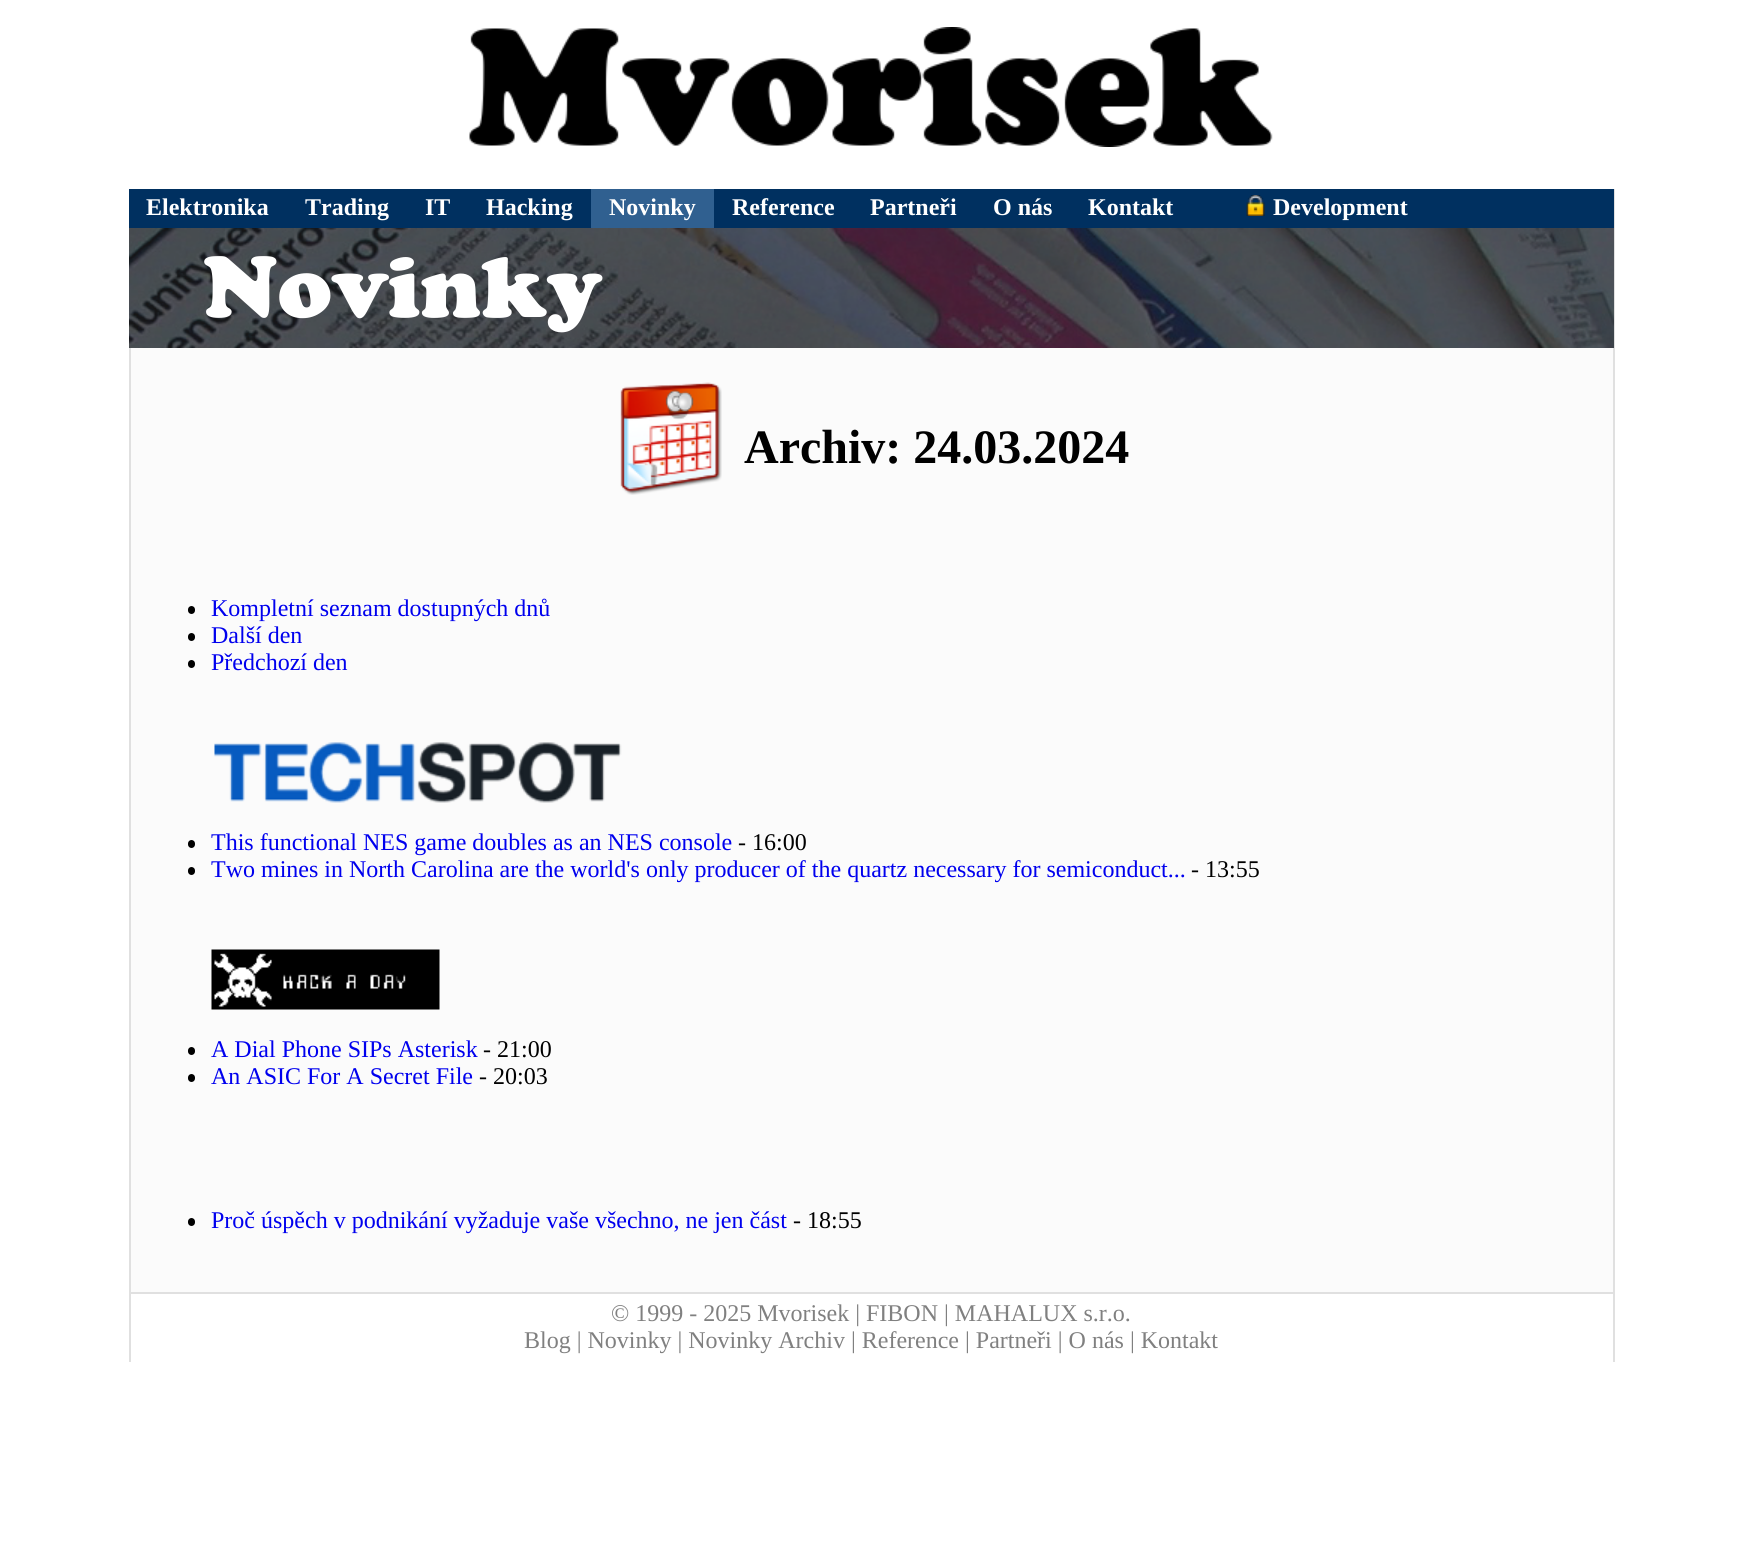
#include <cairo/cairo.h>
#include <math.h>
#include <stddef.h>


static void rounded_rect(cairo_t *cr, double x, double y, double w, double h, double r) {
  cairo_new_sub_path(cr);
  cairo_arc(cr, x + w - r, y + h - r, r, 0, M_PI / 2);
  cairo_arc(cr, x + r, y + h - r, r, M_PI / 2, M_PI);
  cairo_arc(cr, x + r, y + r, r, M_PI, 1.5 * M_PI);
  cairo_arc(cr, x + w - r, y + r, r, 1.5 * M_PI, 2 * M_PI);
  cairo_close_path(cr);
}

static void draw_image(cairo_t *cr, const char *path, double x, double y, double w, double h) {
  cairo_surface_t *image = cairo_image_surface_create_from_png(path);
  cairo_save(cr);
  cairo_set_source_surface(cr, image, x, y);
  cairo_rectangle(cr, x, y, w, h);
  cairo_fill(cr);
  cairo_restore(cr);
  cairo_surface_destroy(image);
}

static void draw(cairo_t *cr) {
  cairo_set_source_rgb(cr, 1, 1, 1);
  cairo_paint(cr);
  draw_image(cr, "images/1.png", 469, 27, 804, 120);
  cairo_set_source_rgb(cr, 224 / 255.0, 224 / 255.0, 224 / 255.0);
  cairo_rectangle(cr, 1613, 189, 2, 1104);
  cairo_fill(cr);
  cairo_set_source_rgb(cr, 0, 48 / 255.0, 96 / 255.0);
  cairo_rectangle(cr, 129, 189, 1485, 39);
  cairo_fill(cr);
  cairo_set_source_rgb(cr, 48 / 255.0, 96 / 255.0, 144 / 255.0);
  cairo_rectangle(cr, 591, 189, 123, 39);
  cairo_fill(cr);
  draw_image(cr, "images/2.png", 1246, 195, 19, 21);
  cairo_set_source_rgb(cr, 251 / 255.0, 251 / 255.0, 251 / 255.0);
  cairo_rectangle(cr, 131, 348, 1482, 944);
  cairo_fill(cr);
  cairo_set_source_rgb(cr, 224 / 255.0, 224 / 255.0, 224 / 255.0);
  cairo_rectangle(cr, 129, 1292, 1485, 2);
  cairo_fill(cr);
  cairo_rectangle(cr, 129, 348, 2, 1014);
  cairo_fill(cr);
  draw_image(cr, "images/3.png", 129, 228, 1485, 120);
  draw_image(cr, "images/4.png", 620, 382, 102, 113);
  cairo_set_source_rgb(cr, 0, 0, 0);
  rounded_rect(cr, 188, 606, 7, 8, 3.5);
  cairo_fill(cr);
  rounded_rect(cr, 188, 633, 7, 8, 3.5);
  cairo_fill(cr);
  rounded_rect(cr, 188, 660, 7, 8, 3.5);
  cairo_fill(cr);
  draw_image(cr, "images/5.png", 214, 742, 408, 61);
  rounded_rect(cr, 188, 840, 7, 8, 3.5);
  cairo_fill(cr);
  rounded_rect(cr, 188, 867, 7, 8, 3.5);
  cairo_fill(cr);
  draw_image(cr, "images/6.png", 211, 949, 229, 61);
  rounded_rect(cr, 188, 1047, 7, 8, 3.5);
  cairo_fill(cr);
  rounded_rect(cr, 188, 1074, 7, 8, 3.5);
  cairo_fill(cr);
  rounded_rect(cr, 188, 1218, 7, 8, 3.5);
  cairo_fill(cr);
  cairo_set_source_rgb(cr, 224 / 255.0, 224 / 255.0, 224 / 255.0);
  cairo_rectangle(cr, 1613, 1292, 2, 70);
  cairo_fill(cr);
  cairo_select_font_face(cr, "Liberation Serif", CAIRO_FONT_SLANT_NORMAL, CAIRO_FONT_WEIGHT_BOLD);
  cairo_set_font_size(cr, 24);
  cairo_set_source_rgb(cr, 1, 1, 1);
  cairo_move_to(cr, 146, 215);
  cairo_show_text(cr, "Elektronika");
  cairo_move_to(cr, 305, 215);
  cairo_show_text(cr, "Trading");
  cairo_move_to(cr, 425, 215);
  cairo_show_text(cr, "IT");
  cairo_move_to(cr, 486, 215);
  cairo_show_text(cr, "Hacking");
  cairo_move_to(cr, 609, 215);
  cairo_show_text(cr, "Novinky");
  cairo_move_to(cr, 732, 215);
  cairo_show_text(cr, "Reference");
  cairo_move_to(cr, 870, 215);
  cairo_show_text(cr, "Partneři");
  cairo_move_to(cr, 993, 215);
  cairo_show_text(cr, "O nás");
  cairo_move_to(cr, 1088, 215);
  cairo_show_text(cr, "Kontakt");
  cairo_move_to(cr, 1273, 215);
  cairo_show_text(cr, "Development");
  cairo_select_font_face(cr, "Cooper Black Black", CAIRO_FONT_SLANT_NORMAL, CAIRO_FONT_WEIGHT_NORMAL);
  cairo_set_font_size(cr, 90);
  cairo_move_to(cr, 203, 317);
  cairo_show_text(cr, "Novinky");
  cairo_select_font_face(cr, "Liberation Serif", CAIRO_FONT_SLANT_NORMAL, CAIRO_FONT_WEIGHT_BOLD);
  cairo_set_font_size(cr, 48);
  cairo_set_source_rgb(cr, 0, 0, 0);
  cairo_move_to(cr, 744, 463);
  cairo_show_text(cr, "Archiv: 24.03.2024");
  cairo_select_font_face(cr, "Liberation Serif", CAIRO_FONT_SLANT_NORMAL, CAIRO_FONT_WEIGHT_NORMAL);
  cairo_set_font_size(cr, 24);
  cairo_set_source_rgb(cr, 0, 0, 238 / 255.0);
  cairo_move_to(cr, 211, 616);
  cairo_show_text(cr, "Kompletní seznam dostupných dnů");
  cairo_move_to(cr, 211, 643);
  cairo_show_text(cr, "Další den");
  cairo_move_to(cr, 211, 670);
  cairo_show_text(cr, "Předchozí den");
  cairo_move_to(cr, 211, 850);
  cairo_show_text(cr, "This functional NES game doubles as an NES console");
  cairo_set_source_rgb(cr, 0, 0, 0);
  cairo_move_to(cr, 738, 850);
  cairo_show_text(cr, "- 16:00");
  cairo_set_source_rgb(cr, 0, 0, 238 / 255.0);
  cairo_move_to(cr, 211, 877);
  cairo_show_text(cr, "Two mines in North Carolina are the world's only producer of the quartz necessary for semiconduct...");
  cairo_set_source_rgb(cr, 0, 0, 0);
  cairo_move_to(cr, 1191, 877);
  cairo_show_text(cr, "- 13:55");
  cairo_set_source_rgb(cr, 0, 0, 238 / 255.0);
  cairo_move_to(cr, 211, 1057);
  cairo_show_text(cr, "A Dial Phone SIPs Asterisk");
  cairo_set_source_rgb(cr, 0, 0, 0);
  cairo_move_to(cr, 483, 1057);
  cairo_show_text(cr, "- 21:00");
  cairo_set_source_rgb(cr, 0, 0, 238 / 255.0);
  cairo_move_to(cr, 211, 1084);
  cairo_show_text(cr, "An ASIC For A Secret File");
  cairo_set_source_rgb(cr, 0, 0, 0);
  cairo_move_to(cr, 479, 1084);
  cairo_show_text(cr, "- 20:03");
  cairo_set_source_rgb(cr, 0, 0, 238 / 255.0);
  cairo_move_to(cr, 211, 1228);
  cairo_show_text(cr, "Proč úspěch v podnikání vyžaduje vaše všechno, ne jen část");
  cairo_set_source_rgb(cr, 0, 0, 0);
  cairo_move_to(cr, 793, 1228);
  cairo_show_text(cr, "- 18:55");
  cairo_set_source_rgb(cr, 128 / 255.0, 128 / 255.0, 128 / 255.0);
  cairo_move_to(cr, 611, 1321);
  cairo_show_text(cr, "© 1999 - 2025 Mvorisek | FIBON | MAHALUX s.r.o.");
  cairo_move_to(cr, 524, 1348);
  cairo_show_text(cr, "Blog | Novinky | Novinky Archiv | Reference | Partneři | O nás | Kontakt");
}

int main(void) {
  cairo_surface_t *surface = cairo_image_surface_create(CAIRO_FORMAT_RGB24, 1741, 1558);
  cairo_t *cr = cairo_create(surface);
  cairo_font_options_t *options = cairo_font_options_create();
  cairo_font_options_set_hint_metrics(options, CAIRO_HINT_METRICS_OFF);
  cairo_font_options_set_hint_style(options, CAIRO_HINT_STYLE_NONE);
  cairo_set_font_options(cr, options);
  cairo_set_miter_limit(cr, 4);
  draw(cr);
  cairo_surface_write_to_png(surface, "out.png");
  cairo_font_options_destroy(options);
  cairo_destroy(cr);
  cairo_surface_destroy(surface);
  return 0;
}
